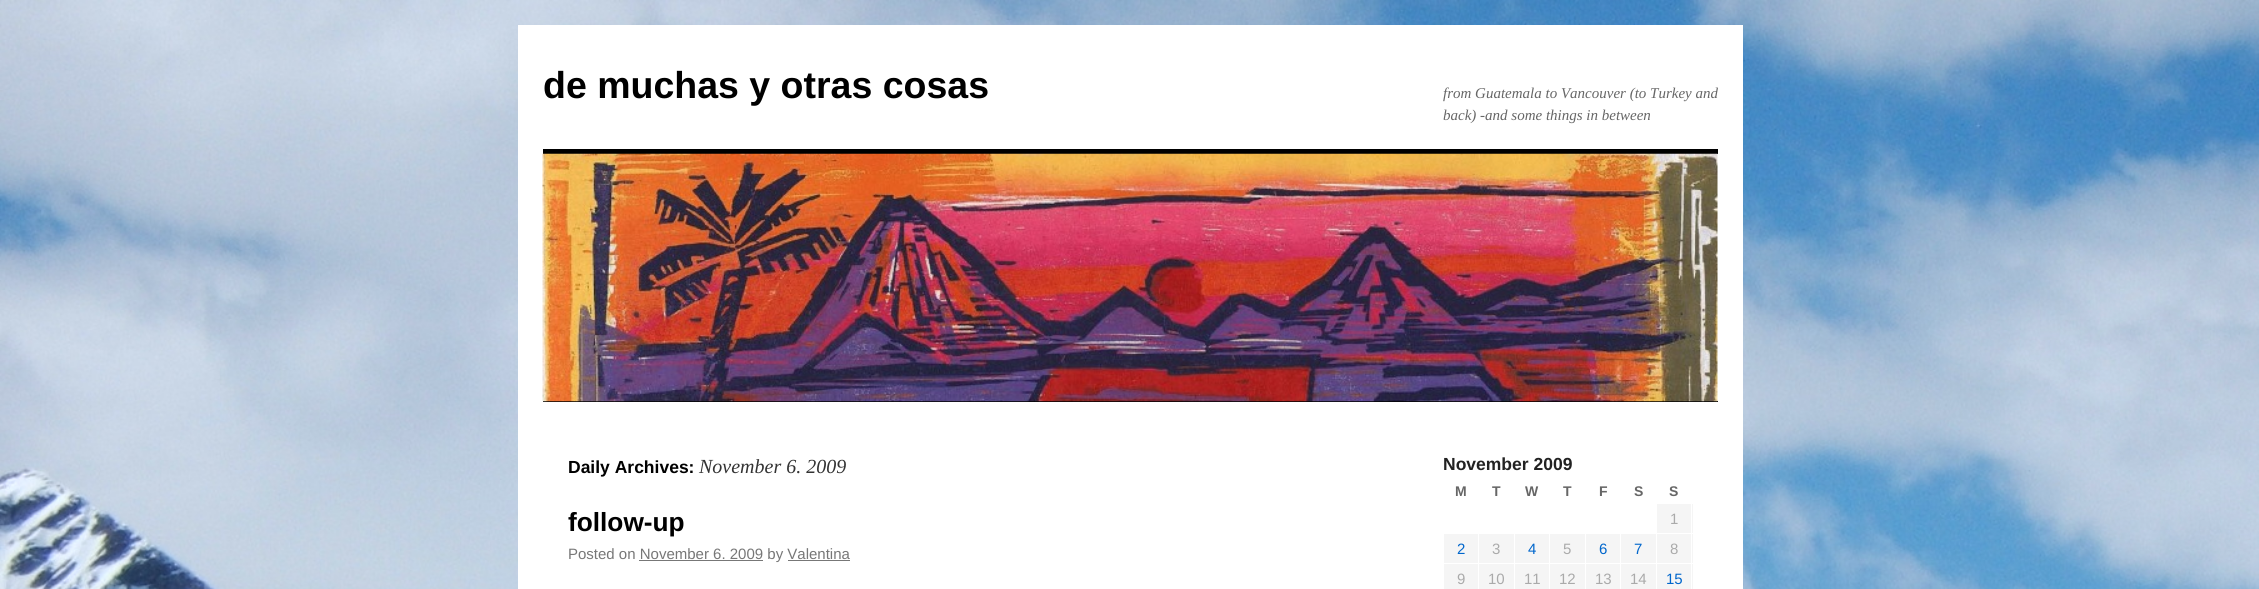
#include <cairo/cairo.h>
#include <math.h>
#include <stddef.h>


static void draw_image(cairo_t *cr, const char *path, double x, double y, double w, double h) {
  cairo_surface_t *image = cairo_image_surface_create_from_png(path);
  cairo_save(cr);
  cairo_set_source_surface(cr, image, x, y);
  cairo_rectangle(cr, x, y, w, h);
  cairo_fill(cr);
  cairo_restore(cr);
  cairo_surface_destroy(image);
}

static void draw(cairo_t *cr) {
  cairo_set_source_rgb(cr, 1, 1, 1);
  cairo_paint(cr);
  draw_image(cr, "images/1.png", 0, 0, 2259, 589);
  cairo_set_source_rgb(cr, 1, 1, 1);
  cairo_rectangle(cr, 518, 25, 1225, 564);
  cairo_fill(cr);
  cairo_set_source_rgb(cr, 0, 0, 0);
  cairo_rectangle(cr, 543, 149, 1175, 5);
  cairo_fill(cr);
  cairo_rectangle(cr, 543, 401, 1175, 1);
  cairo_fill(cr);
  draw_image(cr, "images/2.png", 542, 153, 1176, 249);
  cairo_set_source_rgb(cr, 119 / 255.0, 119 / 255.0, 119 / 255.0);
  cairo_rectangle(cr, 639, 560, 124, 1);
  cairo_fill(cr);
  cairo_rectangle(cr, 788, 560, 62, 1);
  cairo_fill(cr);
  cairo_set_source_rgb(cr, 245 / 255.0, 245 / 255.0, 245 / 255.0);
  cairo_rectangle(cr, 1657, 504, 36, 29);
  cairo_fill(cr);
  cairo_rectangle(cr, 1444, 534, 34, 29);
  cairo_fill(cr);
  cairo_rectangle(cr, 1479, 534, 35, 29);
  cairo_fill(cr);
  cairo_rectangle(cr, 1515, 534, 34, 29);
  cairo_fill(cr);
  cairo_rectangle(cr, 1550, 534, 35, 29);
  cairo_fill(cr);
  cairo_rectangle(cr, 1586, 534, 34, 29);
  cairo_fill(cr);
  cairo_rectangle(cr, 1621, 534, 35, 29);
  cairo_fill(cr);
  cairo_rectangle(cr, 1657, 534, 36, 29);
  cairo_fill(cr);
  cairo_rectangle(cr, 1444, 564, 34, 25);
  cairo_fill(cr);
  cairo_rectangle(cr, 1479, 564, 35, 25);
  cairo_fill(cr);
  cairo_rectangle(cr, 1515, 564, 34, 25);
  cairo_fill(cr);
  cairo_rectangle(cr, 1550, 564, 35, 25);
  cairo_fill(cr);
  cairo_rectangle(cr, 1586, 564, 34, 25);
  cairo_fill(cr);
  cairo_rectangle(cr, 1621, 564, 35, 25);
  cairo_fill(cr);
  cairo_rectangle(cr, 1657, 564, 36, 25);
  cairo_fill(cr);
  cairo_set_source_rgb(cr, 1, 1, 1);
  cairo_rectangle(cr, 1691, 503, 1, 86);
  cairo_fill(cr);
  cairo_select_font_face(cr, "Liberation Sans", CAIRO_FONT_SLANT_NORMAL, CAIRO_FONT_WEIGHT_BOLD);
  cairo_set_font_size(cr, 37.5);
  cairo_set_source_rgb(cr, 0, 0, 0);
  cairo_move_to(cr, 543, 98);
  cairo_show_text(cr, "de muchas y otras cosas");
  cairo_select_font_face(cr, "Liberation Serif", CAIRO_FONT_SLANT_ITALIC, CAIRO_FONT_WEIGHT_NORMAL);
  cairo_set_font_size(cr, 15);
  cairo_set_source_rgb(cr, 102 / 255.0, 102 / 255.0, 102 / 255.0);
  cairo_move_to(cr, 1443, 98);
  cairo_show_text(cr, "from Guatemala to Vancouver (to Turkey and");
  cairo_move_to(cr, 1443, 120);
  cairo_show_text(cr, "back) -and some things in between");
  cairo_select_font_face(cr, "Liberation Sans", CAIRO_FONT_SLANT_NORMAL, CAIRO_FONT_WEIGHT_BOLD);
  cairo_set_font_size(cr, 17.5);
  cairo_set_source_rgb(cr, 0, 0, 0);
  cairo_move_to(cr, 568, 473);
  cairo_show_text(cr, "Daily Archives:");
  cairo_select_font_face(cr, "Liberation Serif", CAIRO_FONT_SLANT_ITALIC, CAIRO_FONT_WEIGHT_NORMAL);
  cairo_set_font_size(cr, 20);
  cairo_set_source_rgb(cr, 51 / 255.0, 51 / 255.0, 51 / 255.0);
  cairo_move_to(cr, 699, 473);
  cairo_show_text(cr, "November 6. 2009");
  cairo_select_font_face(cr, "Liberation Sans", CAIRO_FONT_SLANT_NORMAL, CAIRO_FONT_WEIGHT_BOLD);
  cairo_set_font_size(cr, 26.25);
  cairo_set_source_rgb(cr, 0, 0, 0);
  cairo_move_to(cr, 568, 531);
  cairo_show_text(cr, "follow-up");
  cairo_select_font_face(cr, "Liberation Sans", CAIRO_FONT_SLANT_NORMAL, CAIRO_FONT_WEIGHT_NORMAL);
  cairo_set_font_size(cr, 15);
  cairo_set_source_rgb(cr, 119 / 255.0, 119 / 255.0, 119 / 255.0);
  cairo_move_to(cr, 568, 559);
  cairo_show_text(cr, "Posted on November 6. 2009 by Valentina");
  cairo_select_font_face(cr, "Liberation Sans", CAIRO_FONT_SLANT_NORMAL, CAIRO_FONT_WEIGHT_BOLD);
  cairo_set_font_size(cr, 17.5);
  cairo_set_source_rgb(cr, 34 / 255.0, 34 / 255.0, 34 / 255.0);
  cairo_move_to(cr, 1443, 470);
  cairo_show_text(cr, "November 2009");
  cairo_set_font_size(cr, 14);
  cairo_set_source_rgb(cr, 102 / 255.0, 102 / 255.0, 102 / 255.0);
  cairo_move_to(cr, 1455, 496);
  cairo_show_text(cr, "M");
  cairo_move_to(cr, 1492, 496);
  cairo_show_text(cr, "T");
  cairo_move_to(cr, 1525, 496);
  cairo_show_text(cr, "W");
  cairo_move_to(cr, 1563, 496);
  cairo_show_text(cr, "T");
  cairo_move_to(cr, 1599, 496);
  cairo_show_text(cr, "F");
  cairo_move_to(cr, 1634, 496);
  cairo_show_text(cr, "S");
  cairo_move_to(cr, 1669, 496);
  cairo_show_text(cr, "S");
  cairo_select_font_face(cr, "Liberation Sans", CAIRO_FONT_SLANT_NORMAL, CAIRO_FONT_WEIGHT_NORMAL);
  cairo_set_font_size(cr, 15);
  cairo_set_source_rgb(cr, 170 / 255.0, 170 / 255.0, 170 / 255.0);
  cairo_move_to(cr, 1670, 524);
  cairo_show_text(cr, "1");
  cairo_set_source_rgb(cr, 0, 102 / 255.0, 204 / 255.0);
  cairo_move_to(cr, 1457, 554);
  cairo_show_text(cr, "2");
  cairo_set_source_rgb(cr, 170 / 255.0, 170 / 255.0, 170 / 255.0);
  cairo_move_to(cr, 1492, 554);
  cairo_show_text(cr, "3");
  cairo_set_source_rgb(cr, 0, 102 / 255.0, 204 / 255.0);
  cairo_move_to(cr, 1528, 554);
  cairo_show_text(cr, "4");
  cairo_set_source_rgb(cr, 170 / 255.0, 170 / 255.0, 170 / 255.0);
  cairo_move_to(cr, 1563, 554);
  cairo_show_text(cr, "5");
  cairo_set_source_rgb(cr, 0, 102 / 255.0, 204 / 255.0);
  cairo_move_to(cr, 1599, 554);
  cairo_show_text(cr, "6");
  cairo_move_to(cr, 1634, 554);
  cairo_show_text(cr, "7");
  cairo_set_source_rgb(cr, 170 / 255.0, 170 / 255.0, 170 / 255.0);
  cairo_move_to(cr, 1670, 554);
  cairo_show_text(cr, "8");
  cairo_move_to(cr, 1457, 584);
  cairo_show_text(cr, "9");
  cairo_move_to(cr, 1488, 584);
  cairo_show_text(cr, "10");
  cairo_move_to(cr, 1524, 584);
  cairo_show_text(cr, "11");
  cairo_move_to(cr, 1559, 584);
  cairo_show_text(cr, "12");
  cairo_move_to(cr, 1595, 584);
  cairo_show_text(cr, "13");
  cairo_move_to(cr, 1630, 584);
  cairo_show_text(cr, "14");
  cairo_set_source_rgb(cr, 0, 102 / 255.0, 204 / 255.0);
  cairo_move_to(cr, 1666, 584);
  cairo_show_text(cr, "15");
}

int main(void) {
  cairo_surface_t *surface = cairo_image_surface_create(CAIRO_FORMAT_RGB24, 2259, 589);
  cairo_t *cr = cairo_create(surface);
  cairo_font_options_t *options = cairo_font_options_create();
  cairo_font_options_set_hint_metrics(options, CAIRO_HINT_METRICS_OFF);
  cairo_font_options_set_hint_style(options, CAIRO_HINT_STYLE_NONE);
  cairo_set_font_options(cr, options);
  cairo_set_miter_limit(cr, 4);
  draw(cr);
  cairo_surface_write_to_png(surface, "out.png");
  cairo_font_options_destroy(options);
  cairo_destroy(cr);
  cairo_surface_destroy(surface);
  return 0;
}
